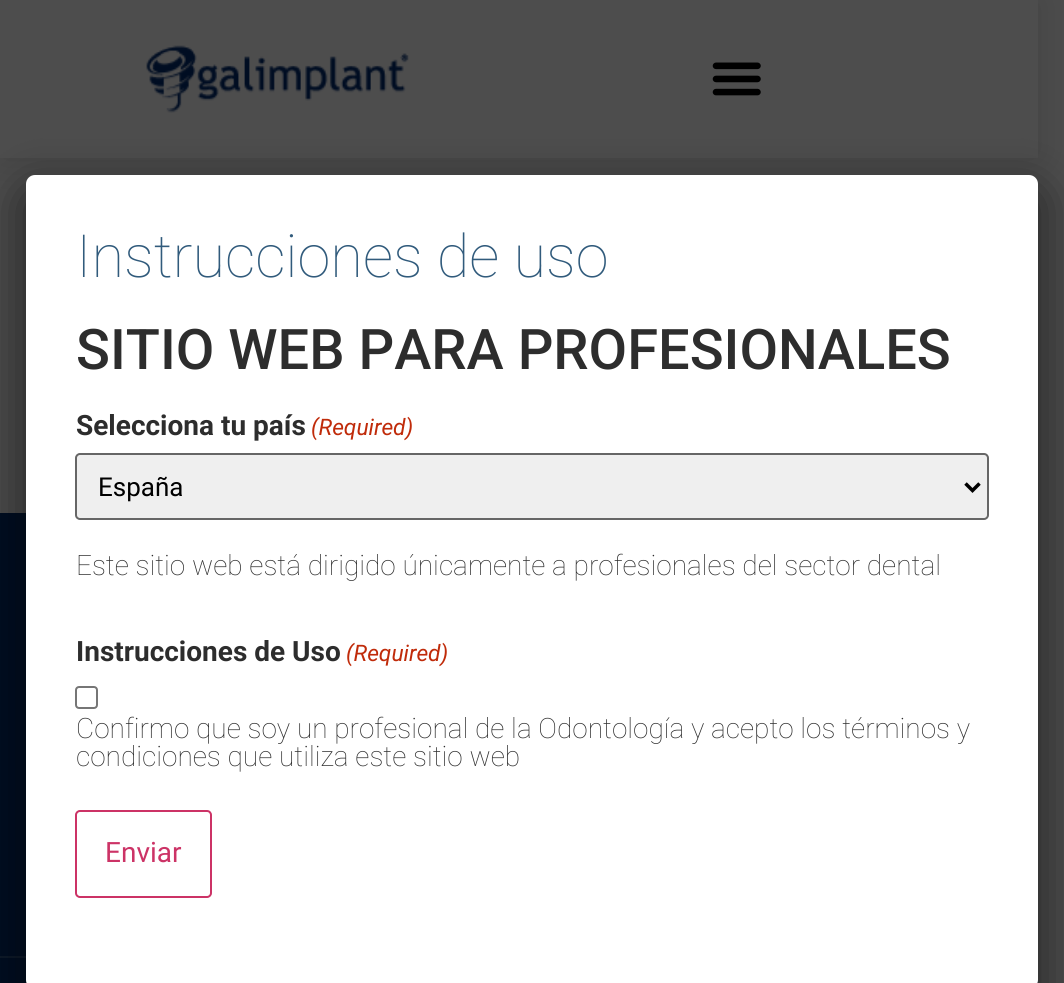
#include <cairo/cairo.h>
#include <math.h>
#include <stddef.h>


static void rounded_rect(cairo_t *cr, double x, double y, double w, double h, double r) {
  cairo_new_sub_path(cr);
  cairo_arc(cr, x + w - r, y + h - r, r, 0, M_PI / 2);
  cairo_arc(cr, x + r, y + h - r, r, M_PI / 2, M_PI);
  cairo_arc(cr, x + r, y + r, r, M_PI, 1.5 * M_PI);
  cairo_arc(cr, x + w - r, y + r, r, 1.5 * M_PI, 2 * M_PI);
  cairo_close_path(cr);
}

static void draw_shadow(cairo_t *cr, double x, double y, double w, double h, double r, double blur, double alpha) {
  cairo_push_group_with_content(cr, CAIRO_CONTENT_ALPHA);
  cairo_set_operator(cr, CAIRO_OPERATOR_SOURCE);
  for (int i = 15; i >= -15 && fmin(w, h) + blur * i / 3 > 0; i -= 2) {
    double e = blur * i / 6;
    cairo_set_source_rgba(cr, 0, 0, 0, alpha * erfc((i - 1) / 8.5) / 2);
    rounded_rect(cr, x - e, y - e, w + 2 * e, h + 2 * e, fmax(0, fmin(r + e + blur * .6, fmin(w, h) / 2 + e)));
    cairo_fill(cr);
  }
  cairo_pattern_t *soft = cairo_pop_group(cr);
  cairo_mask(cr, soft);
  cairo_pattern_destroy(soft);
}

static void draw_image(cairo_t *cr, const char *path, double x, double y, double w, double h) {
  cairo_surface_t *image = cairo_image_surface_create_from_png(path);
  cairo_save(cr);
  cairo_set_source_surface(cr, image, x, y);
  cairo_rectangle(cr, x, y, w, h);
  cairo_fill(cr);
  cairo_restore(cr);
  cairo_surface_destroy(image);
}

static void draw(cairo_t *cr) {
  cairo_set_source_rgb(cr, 77 / 255.0, 77 / 255.0, 77 / 255.0);
  cairo_paint(cr);
  cairo_set_source_rgb(cr, 0, 0, 0);
  draw_shadow(cr, 0, 0, 1038, 158, 0, 21, 0.15);
  cairo_set_source_rgb(cr, 77 / 255.0, 77 / 255.0, 77 / 255.0);
  cairo_rectangle(cr, 0, 0, 1038, 158);
  cairo_fill(cr);
  draw_image(cr, "images/1.png", 146, 45, 263, 68);
  draw_image(cr, "images/2.png", 712, 62, 49, 34);
  cairo_set_source_rgb(cr, 0, 14 / 255.0, 34 / 255.0);
  cairo_rectangle(cr, 0, 513, 26, 443);
  cairo_fill(cr);
  cairo_rectangle(cr, 0, 958, 1038, 25);
  cairo_fill(cr);
  cairo_set_source_rgb(cr, 14 / 255.0, 26 / 255.0, 42 / 255.0);
  cairo_rectangle(cr, 0, 956, 26, 2);
  cairo_fill(cr);
  cairo_set_source_rgb(cr, 2 / 255.0, 2 / 255.0, 2 / 255.0);
  draw_shadow(cr, 19, 186, 1026, 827, 16, 22, 0.5);
  cairo_set_source_rgb(cr, 1, 1, 1);
  rounded_rect(cr, 26, 175, 1012, 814, 9);
  cairo_fill(cr);
  cairo_set_source_rgb(cr, 239 / 255.0, 239 / 255.0, 239 / 255.0);
  rounded_rect(cr, 76, 454, 912, 65, 4);
  cairo_fill_preserve(cr);
  cairo_set_source_rgb(cr, 102 / 255.0, 102 / 255.0, 102 / 255.0);
  cairo_stroke(cr);
  cairo_new_path(cr);
  cairo_move_to(cr, 965.5, 483.5);
  cairo_line_to(cr, 972.5, 490.5);
  cairo_line_to(cr, 979.5, 483.5);
  cairo_set_source_rgb(cr, 0, 0, 0);
  cairo_set_line_width(cr, 3.5);
  cairo_stroke(cr);
  rounded_rect(cr, 76, 687, 21, 21, 3);
  cairo_set_source_rgb(cr, 118 / 255.0, 118 / 255.0, 118 / 255.0);
  cairo_set_line_width(cr, 2);
  cairo_stroke(cr);
  rounded_rect(cr, 76, 811, 135, 86, 4);
  cairo_set_source_rgb(cr, 204 / 255.0, 51 / 255.0, 102 / 255.0);
  cairo_stroke(cr);
  cairo_select_font_face(cr, "Roboto Thin", CAIRO_FONT_SLANT_NORMAL, CAIRO_FONT_WEIGHT_NORMAL);
  cairo_set_font_size(cr, 59.5);
  cairo_set_source_rgb(cr, 49 / 255.0, 91 / 255.0, 124 / 255.0);
  cairo_move_to(cr, 76, 277);
  cairo_show_text(cr, "Instrucciones de uso");
  cairo_select_font_face(cr, "Roboto Medium", CAIRO_FONT_SLANT_NORMAL, CAIRO_FONT_WEIGHT_NORMAL);
  cairo_set_font_size(cr, 56);
  cairo_set_source_rgb(cr, 45 / 255.0, 45 / 255.0, 45 / 255.0);
  cairo_move_to(cr, 76, 369);
  cairo_show_text(cr, "SITIO WEB PARA PROFESIONALES");
  cairo_select_font_face(cr, "Roboto", CAIRO_FONT_SLANT_NORMAL, CAIRO_FONT_WEIGHT_BOLD);
  cairo_set_font_size(cr, 28);
  cairo_move_to(cr, 76, 435);
  cairo_show_text(cr, "Selecciona tu país");
  cairo_select_font_face(cr, "Roboto", CAIRO_FONT_SLANT_ITALIC, CAIRO_FONT_WEIGHT_NORMAL);
  cairo_set_font_size(cr, 22.75);
  cairo_set_source_rgb(cr, 192 / 255.0, 43 / 255.0, 10 / 255.0);
  cairo_move_to(cr, 311, 435);
  cairo_show_text(cr, "(Required)");
  cairo_select_font_face(cr, "Roboto", CAIRO_FONT_SLANT_NORMAL, CAIRO_FONT_WEIGHT_NORMAL);
  cairo_set_font_size(cr, 26);
  cairo_set_source_rgb(cr, 0, 0, 0);
  cairo_move_to(cr, 98, 496);
  cairo_show_text(cr, "España");
  cairo_select_font_face(cr, "Roboto Thin", CAIRO_FONT_SLANT_NORMAL, CAIRO_FONT_WEIGHT_NORMAL);
  cairo_set_font_size(cr, 28);
  cairo_set_source_rgb(cr, 45 / 255.0, 45 / 255.0, 45 / 255.0);
  cairo_move_to(cr, 76, 575);
  cairo_show_text(cr, "Este sitio web está dirigido únicamente a profesionales del sector dental");
  cairo_select_font_face(cr, "Roboto", CAIRO_FONT_SLANT_NORMAL, CAIRO_FONT_WEIGHT_BOLD);
  cairo_move_to(cr, 76, 661);
  cairo_show_text(cr, "Instrucciones de Uso");
  cairo_select_font_face(cr, "Roboto", CAIRO_FONT_SLANT_ITALIC, CAIRO_FONT_WEIGHT_NORMAL);
  cairo_set_font_size(cr, 22.75);
  cairo_set_source_rgb(cr, 192 / 255.0, 43 / 255.0, 10 / 255.0);
  cairo_move_to(cr, 346, 661);
  cairo_show_text(cr, "(Required)");
  cairo_select_font_face(cr, "Roboto Thin", CAIRO_FONT_SLANT_NORMAL, CAIRO_FONT_WEIGHT_NORMAL);
  cairo_set_font_size(cr, 28);
  cairo_set_source_rgb(cr, 45 / 255.0, 45 / 255.0, 45 / 255.0);
  cairo_move_to(cr, 76, 738);
  cairo_show_text(cr, "Confirmo que soy un profesional de la Odontología y acepto los términos y");
  cairo_move_to(cr, 76, 766);
  cairo_show_text(cr, "condiciones que utiliza este sitio web");
  cairo_select_font_face(cr, "Roboto", CAIRO_FONT_SLANT_NORMAL, CAIRO_FONT_WEIGHT_NORMAL);
  cairo_set_source_rgb(cr, 204 / 255.0, 51 / 255.0, 102 / 255.0);
  cairo_move_to(cr, 105, 862);
  cairo_show_text(cr, "Enviar");
}

int main(void) {
  cairo_surface_t *surface = cairo_image_surface_create(CAIRO_FORMAT_RGB24, 1064, 983);
  cairo_t *cr = cairo_create(surface);
  cairo_font_options_t *options = cairo_font_options_create();
  cairo_font_options_set_hint_metrics(options, CAIRO_HINT_METRICS_OFF);
  cairo_font_options_set_hint_style(options, CAIRO_HINT_STYLE_NONE);
  cairo_set_font_options(cr, options);
  cairo_set_miter_limit(cr, 4);
  draw(cr);
  cairo_surface_write_to_png(surface, "out.png");
  cairo_font_options_destroy(options);
  cairo_destroy(cr);
  cairo_surface_destroy(surface);
  return 0;
}
